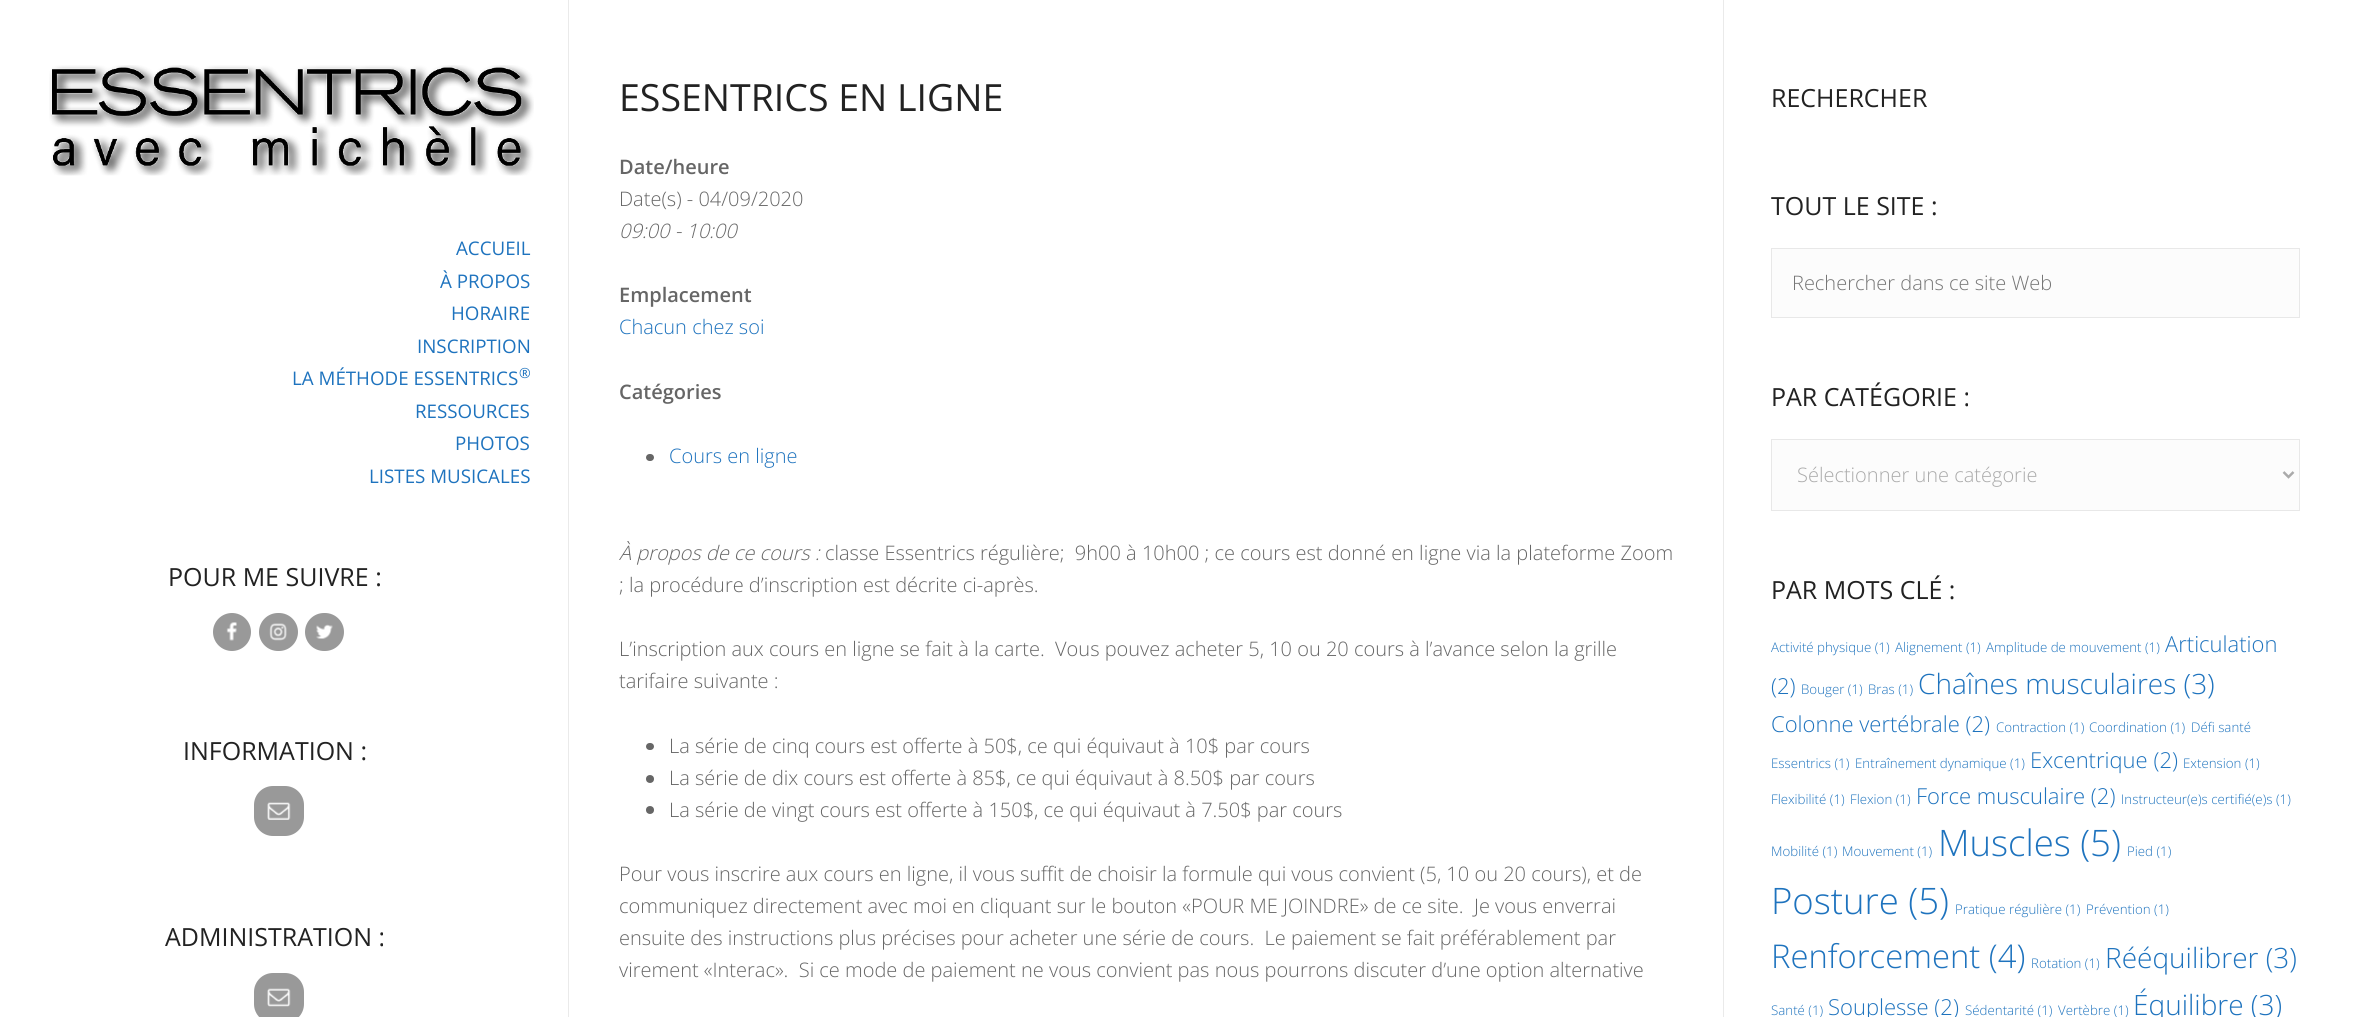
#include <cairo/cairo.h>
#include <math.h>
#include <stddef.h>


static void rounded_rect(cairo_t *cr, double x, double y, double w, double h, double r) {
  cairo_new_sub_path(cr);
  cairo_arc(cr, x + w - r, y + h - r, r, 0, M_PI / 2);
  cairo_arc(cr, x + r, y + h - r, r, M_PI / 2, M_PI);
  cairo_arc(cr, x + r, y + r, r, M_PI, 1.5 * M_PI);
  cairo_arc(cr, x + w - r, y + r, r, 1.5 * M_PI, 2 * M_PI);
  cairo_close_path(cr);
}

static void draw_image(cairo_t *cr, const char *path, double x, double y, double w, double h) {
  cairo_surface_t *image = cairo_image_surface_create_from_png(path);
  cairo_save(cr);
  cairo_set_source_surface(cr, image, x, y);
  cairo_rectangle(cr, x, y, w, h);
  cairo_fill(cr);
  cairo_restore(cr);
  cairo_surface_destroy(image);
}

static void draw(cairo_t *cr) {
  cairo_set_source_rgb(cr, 1, 1, 1);
  cairo_paint(cr);
  cairo_set_source_rgb(cr, 234 / 255.0, 234 / 255.0, 234 / 255.0);
  cairo_rectangle(cr, 568, 0, 1, 1017);
  cairo_fill(cr);
  draw_image(cr, "images/1.png", 49, 65, 485, 111);
  cairo_set_source_rgb(cr, 153 / 255.0, 153 / 255.0, 153 / 255.0);
  cairo_arc(cr, 232, 632, 19, 0, 2 * M_PI);
  cairo_fill(cr);
  draw_image(cr, "images/2.png", 226, 622, 11, 19);
  rounded_rect(cr, 259, 613, 39, 38, 19);
  cairo_fill(cr);
  draw_image(cr, "images/3.png", 269, 623, 18, 18);
  rounded_rect(cr, 305, 613, 39, 38, 19);
  cairo_fill(cr);
  draw_image(cr, "images/4.png", 316, 624, 17, 15);
  rounded_rect(cr, 254, 786, 50, 50, 19);
  cairo_fill(cr);
  draw_image(cr, "images/5.png", 267, 802, 24, 18);
  rounded_rect(cr, 254, 973, 50, 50, 19);
  cairo_fill(cr);
  draw_image(cr, "images/6.png", 267, 988, 24, 19);
  cairo_set_source_rgb(cr, 234 / 255.0, 234 / 255.0, 234 / 255.0);
  cairo_rectangle(cr, 1723, 0, 1, 1017);
  cairo_fill(cr);
  cairo_set_source_rgb(cr, 102 / 255.0, 102 / 255.0, 102 / 255.0);
  rounded_rect(cr, 646, 454, 8, 7, 3.5);
  cairo_fill(cr);
  rounded_rect(cr, 646, 743, 8, 7, 3.5);
  cairo_fill(cr);
  cairo_arc(cr, 650, 779, 4, 0, 2 * M_PI);
  cairo_fill(cr);
  cairo_arc(cr, 650, 810, 4, 0, 2 * M_PI);
  cairo_fill(cr);
  cairo_set_source_rgb(cr, 252 / 255.0, 252 / 255.0, 252 / 255.0);
  cairo_rectangle(cr, 1771.5, 248.5, 528, 69);
  cairo_fill_preserve(cr);
  cairo_set_source_rgb(cr, 232 / 255.0, 232 / 255.0, 232 / 255.0);
  cairo_set_line_width(cr, 1);
  cairo_stroke(cr);
  cairo_set_source_rgb(cr, 252 / 255.0, 252 / 255.0, 252 / 255.0);
  cairo_rectangle(cr, 1771.5, 439.5, 528, 71);
  cairo_fill_preserve(cr);
  cairo_set_source_rgb(cr, 232 / 255.0, 232 / 255.0, 232 / 255.0);
  cairo_stroke(cr);
  cairo_new_path(cr);
  cairo_move_to(cr, 2283.5, 472);
  cairo_line_to(cr, 2288.5, 477);
  cairo_line_to(cr, 2293.5, 472);
  cairo_set_source_rgb(cr, 170 / 255.0, 170 / 255.0, 170 / 255.0);
  cairo_set_line_width(cr, 2.5);
  cairo_stroke(cr);
  cairo_select_font_face(cr, "Open Sans", CAIRO_FONT_SLANT_NORMAL, CAIRO_FONT_WEIGHT_NORMAL);
  cairo_set_font_size(cr, 18.75);
  cairo_set_source_rgb(cr, 30 / 255.0, 115 / 255.0, 190 / 255.0);
  cairo_move_to(cr, 456, 255);
  cairo_show_text(cr, "ACCUEIL");
  cairo_move_to(cr, 440, 288);
  cairo_show_text(cr, "À PROPOS");
  cairo_move_to(cr, 451, 320);
  cairo_show_text(cr, "HORAIRE");
  cairo_move_to(cr, 417, 353);
  cairo_show_text(cr, "INSCRIPTION");
  cairo_move_to(cr, 292, 385);
  cairo_show_text(cr, "LA MÉTHODE ESSENTRICS");
  cairo_set_font_size(cr, 14);
  cairo_move_to(cr, 519, 378);
  cairo_show_text(cr, "®");
  cairo_set_font_size(cr, 18.75);
  cairo_move_to(cr, 415, 418);
  cairo_show_text(cr, "RESSOURCES");
  cairo_move_to(cr, 455, 450);
  cairo_show_text(cr, "PHOTOS");
  cairo_move_to(cr, 369, 483);
  cairo_show_text(cr, "LISTES MUSICALES");
  cairo_set_font_size(cr, 25);
  cairo_set_source_rgb(cr, 34 / 255.0, 34 / 255.0, 34 / 255.0);
  cairo_move_to(cr, 168, 586);
  cairo_show_text(cr, "POUR ME SUIVRE :");
  cairo_move_to(cr, 183, 760);
  cairo_show_text(cr, "INFORMATION :");
  cairo_move_to(cr, 165, 946);
  cairo_show_text(cr, "ADMINISTRATION :");
  cairo_set_font_size(cr, 37.5);
  cairo_move_to(cr, 619, 111);
  cairo_show_text(cr, "ESSENTRICS EN LIGNE");
  cairo_select_font_face(cr, "Open Sans SemiBold", CAIRO_FONT_SLANT_NORMAL, CAIRO_FONT_WEIGHT_NORMAL);
  cairo_set_font_size(cr, 20);
  cairo_set_source_rgb(cr, 102 / 255.0, 102 / 255.0, 102 / 255.0);
  cairo_move_to(cr, 619, 174);
  cairo_show_text(cr, "Date/heure");
  cairo_select_font_face(cr, "Open Sans Light", CAIRO_FONT_SLANT_NORMAL, CAIRO_FONT_WEIGHT_NORMAL);
  cairo_move_to(cr, 619, 206);
  cairo_show_text(cr, "Date(s) - 04/09/2020");
  cairo_select_font_face(cr, "Open Sans Light", CAIRO_FONT_SLANT_ITALIC, CAIRO_FONT_WEIGHT_NORMAL);
  cairo_move_to(cr, 619, 238);
  cairo_show_text(cr, "09:00 - 10:00");
  cairo_select_font_face(cr, "Open Sans SemiBold", CAIRO_FONT_SLANT_NORMAL, CAIRO_FONT_WEIGHT_NORMAL);
  cairo_move_to(cr, 619, 302);
  cairo_show_text(cr, "Emplacement");
  cairo_select_font_face(cr, "Open Sans Light", CAIRO_FONT_SLANT_NORMAL, CAIRO_FONT_WEIGHT_NORMAL);
  cairo_set_source_rgb(cr, 30 / 255.0, 115 / 255.0, 190 / 255.0);
  cairo_move_to(cr, 619, 334);
  cairo_show_text(cr, "Chacun chez soi");
  cairo_select_font_face(cr, "Open Sans SemiBold", CAIRO_FONT_SLANT_NORMAL, CAIRO_FONT_WEIGHT_NORMAL);
  cairo_set_source_rgb(cr, 102 / 255.0, 102 / 255.0, 102 / 255.0);
  cairo_move_to(cr, 619, 399);
  cairo_show_text(cr, "Catégories");
  cairo_select_font_face(cr, "Open Sans Light", CAIRO_FONT_SLANT_NORMAL, CAIRO_FONT_WEIGHT_NORMAL);
  cairo_set_source_rgb(cr, 30 / 255.0, 115 / 255.0, 190 / 255.0);
  cairo_move_to(cr, 669, 463);
  cairo_show_text(cr, "Cours en ligne");
  cairo_select_font_face(cr, "Open Sans Light", CAIRO_FONT_SLANT_ITALIC, CAIRO_FONT_WEIGHT_NORMAL);
  cairo_set_source_rgb(cr, 102 / 255.0, 102 / 255.0, 102 / 255.0);
  cairo_move_to(cr, 619, 560);
  cairo_show_text(cr, "À propos de ce cours :");
  cairo_select_font_face(cr, "Open Sans Light", CAIRO_FONT_SLANT_NORMAL, CAIRO_FONT_WEIGHT_NORMAL);
  cairo_move_to(cr, 825, 560);
  cairo_show_text(cr, "classe Essentrics régulière;  9h00 à 10h00 ; ce cours est donné en ligne via la plateforme Zoom");
  cairo_move_to(cr, 619, 592);
  cairo_show_text(cr, "; la procédure d’inscription est décrite ci-après.");
  cairo_move_to(cr, 619, 656);
  cairo_show_text(cr, "L’inscription aux cours en ligne se fait à la carte.  Vous pouvez acheter 5, 10 ou 20 cours à l’avance selon la grille");
  cairo_move_to(cr, 619, 688);
  cairo_show_text(cr, "tarifaire suivante :");
  cairo_move_to(cr, 669, 753);
  cairo_show_text(cr, "La série de cinq cours est offerte à 50$, ce qui équivaut à 10$ par cours");
  cairo_move_to(cr, 669, 785);
  cairo_show_text(cr, "La série de dix cours est offerte à 85$, ce qui équivaut à 8.50$ par cours");
  cairo_move_to(cr, 669, 817);
  cairo_show_text(cr, "La série de vingt cours est offerte à 150$, ce qui équivaut à 7.50$ par cours");
  cairo_move_to(cr, 619, 881);
  cairo_show_text(cr, "Pour vous inscrire aux cours en ligne, il vous suffit de choisir la formule qui vous convient (5, 10 ou 20 cours), et de");
  cairo_move_to(cr, 619, 913);
  cairo_show_text(cr, "communiquez directement avec moi en cliquant sur le bouton «POUR ME JOINDRE» de ce site.  Je vous enverrai");
  cairo_move_to(cr, 619, 945);
  cairo_show_text(cr, "ensuite des instructions plus précises pour acheter une série de cours.  Le paiement se fait préférablement par");
  cairo_move_to(cr, 619, 977);
  cairo_show_text(cr, "virement «Interac».  Si ce mode de paiement ne vous convient pas nous pourrons discuter d’une option alternative");
  cairo_select_font_face(cr, "Open Sans", CAIRO_FONT_SLANT_NORMAL, CAIRO_FONT_WEIGHT_NORMAL);
  cairo_set_font_size(cr, 25);
  cairo_set_source_rgb(cr, 34 / 255.0, 34 / 255.0, 34 / 255.0);
  cairo_move_to(cr, 1771, 107);
  cairo_show_text(cr, "RECHERCHER");
  cairo_move_to(cr, 1771, 215);
  cairo_show_text(cr, "TOUT LE SITE :");
  cairo_select_font_face(cr, "Open Sans Light", CAIRO_FONT_SLANT_NORMAL, CAIRO_FONT_WEIGHT_NORMAL);
  cairo_set_font_size(cr, 20);
  cairo_set_source_rgb(cr, 117 / 255.0, 117 / 255.0, 117 / 255.0);
  cairo_move_to(cr, 1792, 290);
  cairo_show_text(cr, "Rechercher dans ce site Web");
  cairo_select_font_face(cr, "Open Sans", CAIRO_FONT_SLANT_NORMAL, CAIRO_FONT_WEIGHT_NORMAL);
  cairo_set_font_size(cr, 25);
  cairo_set_source_rgb(cr, 34 / 255.0, 34 / 255.0, 34 / 255.0);
  cairo_move_to(cr, 1771, 406);
  cairo_show_text(cr, "PAR CATÉGORIE :");
  cairo_select_font_face(cr, "Open Sans Light", CAIRO_FONT_SLANT_NORMAL, CAIRO_FONT_WEIGHT_NORMAL);
  cairo_set_font_size(cr, 20);
  cairo_set_source_rgb(cr, 170 / 255.0, 170 / 255.0, 170 / 255.0);
  cairo_move_to(cr, 1797, 482);
  cairo_show_text(cr, "Sélectionner une catégorie");
  cairo_select_font_face(cr, "Open Sans", CAIRO_FONT_SLANT_NORMAL, CAIRO_FONT_WEIGHT_NORMAL);
  cairo_set_font_size(cr, 25);
  cairo_set_source_rgb(cr, 34 / 255.0, 34 / 255.0, 34 / 255.0);
  cairo_move_to(cr, 1771, 599);
  cairo_show_text(cr, "PAR MOTS CLÉ :");
  cairo_select_font_face(cr, "Open Sans Light", CAIRO_FONT_SLANT_NORMAL, CAIRO_FONT_WEIGHT_NORMAL);
  cairo_set_font_size(cr, 13.3);
  cairo_set_source_rgb(cr, 30 / 255.0, 115 / 255.0, 190 / 255.0);
  cairo_move_to(cr, 1771, 652);
  cairo_show_text(cr, "Activité physique (1)");
  cairo_move_to(cr, 1895, 652);
  cairo_show_text(cr, "Alignement (1)");
  cairo_move_to(cr, 1986, 652);
  cairo_show_text(cr, "Amplitude de mouvement (1)");
  cairo_set_font_size(cr, 22);
  cairo_move_to(cr, 2165, 652);
  cairo_show_text(cr, "Articulation");
  cairo_move_to(cr, 1771, 694);
  cairo_show_text(cr, "(2)");
  cairo_set_font_size(cr, 13.3);
  cairo_move_to(cr, 1801, 694);
  cairo_show_text(cr, "Bouger (1)");
  cairo_move_to(cr, 1868, 694);
  cairo_show_text(cr, "Bras (1)");
  cairo_set_font_size(cr, 28);
  cairo_move_to(cr, 1918, 694);
  cairo_show_text(cr, "Chaînes musculaires (3)");
  cairo_set_font_size(cr, 22);
  cairo_move_to(cr, 1771, 732);
  cairo_show_text(cr, "Colonne vertébrale (2)");
  cairo_set_font_size(cr, 13.3);
  cairo_move_to(cr, 1996, 732);
  cairo_show_text(cr, "Contraction (1)");
  cairo_move_to(cr, 2089, 732);
  cairo_show_text(cr, "Coordination (1)");
  cairo_move_to(cr, 2191, 732);
  cairo_show_text(cr, "Défi santé");
  cairo_move_to(cr, 1771, 768);
  cairo_show_text(cr, "Essentrics (1)");
  cairo_move_to(cr, 1855, 768);
  cairo_show_text(cr, "Entraînement dynamique (1)");
  cairo_set_font_size(cr, 22);
  cairo_move_to(cr, 2030, 768);
  cairo_show_text(cr, "Excentrique (2)");
  cairo_set_font_size(cr, 13.3);
  cairo_move_to(cr, 2183, 768);
  cairo_show_text(cr, "Extension (1)");
  cairo_move_to(cr, 1771, 804);
  cairo_show_text(cr, "Flexibilité (1)");
  cairo_move_to(cr, 1850, 804);
  cairo_show_text(cr, "Flexion (1)");
  cairo_set_font_size(cr, 22);
  cairo_move_to(cr, 1916, 804);
  cairo_show_text(cr, "Force musculaire (2)");
  cairo_set_font_size(cr, 13.3);
  cairo_move_to(cr, 2121, 804);
  cairo_show_text(cr, "Instructeur(e)s certifié(e)s (1)");
  cairo_move_to(cr, 1771, 856);
  cairo_show_text(cr, "Mobilité (1)");
  cairo_move_to(cr, 1842, 856);
  cairo_show_text(cr, "Mouvement (1)");
  cairo_set_font_size(cr, 36.5);
  cairo_move_to(cr, 1938, 856);
  cairo_show_text(cr, "Muscles (5)");
  cairo_set_font_size(cr, 13.3);
  cairo_move_to(cr, 2127, 856);
  cairo_show_text(cr, "Pied (1)");
  cairo_set_font_size(cr, 36.5);
  cairo_move_to(cr, 1771, 914);
  cairo_show_text(cr, "Posture (5)");
  cairo_set_font_size(cr, 13.3);
  cairo_move_to(cr, 1955, 914);
  cairo_show_text(cr, "Pratique régulière (1)");
  cairo_move_to(cr, 2086, 914);
  cairo_show_text(cr, "Prévention (1)");
  cairo_set_font_size(cr, 32.75);
  cairo_move_to(cr, 1771, 968);
  cairo_show_text(cr, "Renforcement (4)");
  cairo_set_font_size(cr, 13.3);
  cairo_move_to(cr, 2031, 968);
  cairo_show_text(cr, "Rotation (1)");
  cairo_set_font_size(cr, 28);
  cairo_move_to(cr, 2105, 968);
  cairo_show_text(cr, "Rééquilibrer (3)");
  cairo_set_font_size(cr, 13.3);
  cairo_move_to(cr, 1771, 1015);
  cairo_show_text(cr, "Santé (1)");
  cairo_set_font_size(cr, 22);
  cairo_move_to(cr, 1828, 1015);
  cairo_show_text(cr, "Souplesse (2)");
  cairo_set_font_size(cr, 13.3);
  cairo_move_to(cr, 1965, 1015);
  cairo_show_text(cr, "Sédentarité (1)");
  cairo_move_to(cr, 2058, 1015);
  cairo_show_text(cr, "Vertèbre (1)");
  cairo_set_font_size(cr, 28);
  cairo_move_to(cr, 2133, 1015);
  cairo_show_text(cr, "Équilibre (3)");
}

int main(void) {
  cairo_surface_t *surface = cairo_image_surface_create(CAIRO_FORMAT_RGB24, 2371, 1017);
  cairo_t *cr = cairo_create(surface);
  cairo_font_options_t *options = cairo_font_options_create();
  cairo_font_options_set_hint_metrics(options, CAIRO_HINT_METRICS_OFF);
  cairo_font_options_set_hint_style(options, CAIRO_HINT_STYLE_NONE);
  cairo_set_font_options(cr, options);
  cairo_set_miter_limit(cr, 4);
  draw(cr);
  cairo_surface_write_to_png(surface, "out.png");
  cairo_font_options_destroy(options);
  cairo_destroy(cr);
  cairo_surface_destroy(surface);
  return 0;
}
